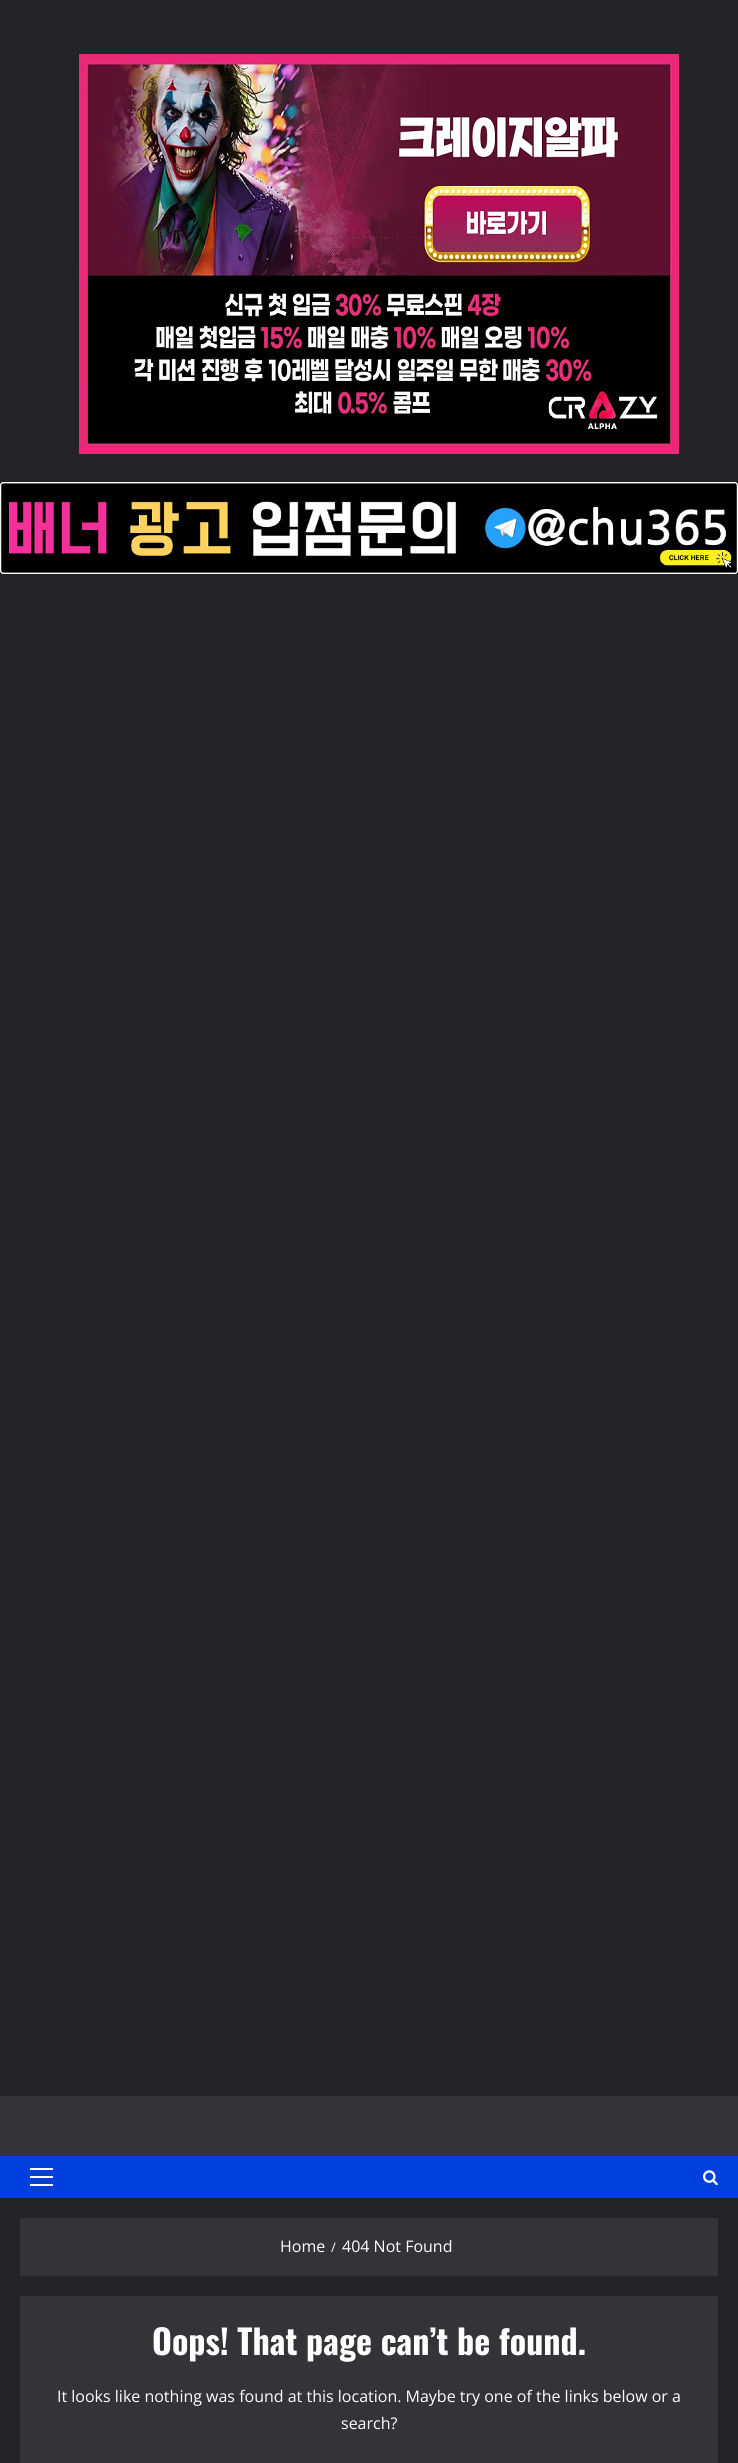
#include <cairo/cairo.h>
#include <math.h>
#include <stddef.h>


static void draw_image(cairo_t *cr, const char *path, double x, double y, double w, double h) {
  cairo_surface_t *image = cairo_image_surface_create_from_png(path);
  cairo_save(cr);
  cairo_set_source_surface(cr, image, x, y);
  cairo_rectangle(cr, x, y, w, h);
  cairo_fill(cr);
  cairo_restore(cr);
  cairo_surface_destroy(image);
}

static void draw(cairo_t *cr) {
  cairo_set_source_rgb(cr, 36 / 255.0, 36 / 255.0, 40 / 255.0);
  cairo_paint(cr);
  draw_image(cr, "images/1.png", 79, 54, 600, 400);
  draw_image(cr, "images/2.png", 0, 482, 738, 92);
  cairo_set_source_rgb(cr, 52 / 255.0, 52 / 255.0, 56 / 255.0);
  cairo_rectangle(cr, 0, 2096, 738, 60);
  cairo_fill(cr);
  cairo_set_source_rgb(cr, 1 / 255.0, 64 / 255.0, 221 / 255.0);
  cairo_rectangle(cr, 0, 2156, 738, 42);
  cairo_fill(cr);
  cairo_set_source_rgb(cr, 1, 1, 1);
  cairo_rectangle(cr, 30, 2176, 23, 2);
  cairo_fill(cr);
  cairo_rectangle(cr, 30, 2168, 23, 2);
  cairo_fill(cr);
  cairo_rectangle(cr, 30, 2184, 23, 2);
  cairo_fill(cr);
  draw_image(cr, "images/3.png", 703, 2170, 15, 16);
  cairo_set_source_rgb(cr, 52 / 255.0, 52 / 255.0, 56 / 255.0);
  cairo_rectangle(cr, 20, 2218, 698, 58);
  cairo_fill(cr);
  cairo_rectangle(cr, 20, 2296, 698, 167);
  cairo_fill(cr);
  cairo_select_font_face(cr, "Open Sans", CAIRO_FONT_SLANT_NORMAL, CAIRO_FONT_WEIGHT_NORMAL);
  cairo_set_font_size(cr, 16);
  cairo_set_source_rgb(cr, 1, 1, 1);
  cairo_move_to(cr, 280, 2252);
  cairo_show_text(cr, "Home");
  cairo_set_font_size(cr, 13);
  cairo_move_to(cr, 331, 2252);
  cairo_show_text(cr, "/");
  cairo_set_font_size(cr, 16);
  cairo_move_to(cr, 342, 2252);
  cairo_show_text(cr, "404 Not Found");
  cairo_select_font_face(cr, "Oswald", CAIRO_FONT_SLANT_NORMAL, CAIRO_FONT_WEIGHT_BOLD);
  cairo_set_font_size(cr, 34);
  cairo_move_to(cr, 152, 2355);
  cairo_show_text(cr, "Oops! That page can’t be found.");
  cairo_select_font_face(cr, "Open Sans", CAIRO_FONT_SLANT_NORMAL, CAIRO_FONT_WEIGHT_NORMAL);
  cairo_set_font_size(cr, 16);
  cairo_move_to(cr, 57, 2402);
  cairo_show_text(cr, "It looks like nothing was found at this location. Maybe try one of the links below or a");
  cairo_move_to(cr, 341, 2429);
  cairo_show_text(cr, "search?");
}

int main(void) {
  cairo_surface_t *surface = cairo_image_surface_create(CAIRO_FORMAT_RGB24, 738, 2463);
  cairo_t *cr = cairo_create(surface);
  cairo_font_options_t *options = cairo_font_options_create();
  cairo_font_options_set_hint_metrics(options, CAIRO_HINT_METRICS_OFF);
  cairo_font_options_set_hint_style(options, CAIRO_HINT_STYLE_NONE);
  cairo_set_font_options(cr, options);
  cairo_set_miter_limit(cr, 4);
  draw(cr);
  cairo_surface_write_to_png(surface, "out.png");
  cairo_font_options_destroy(options);
  cairo_destroy(cr);
  cairo_surface_destroy(surface);
  return 0;
}
